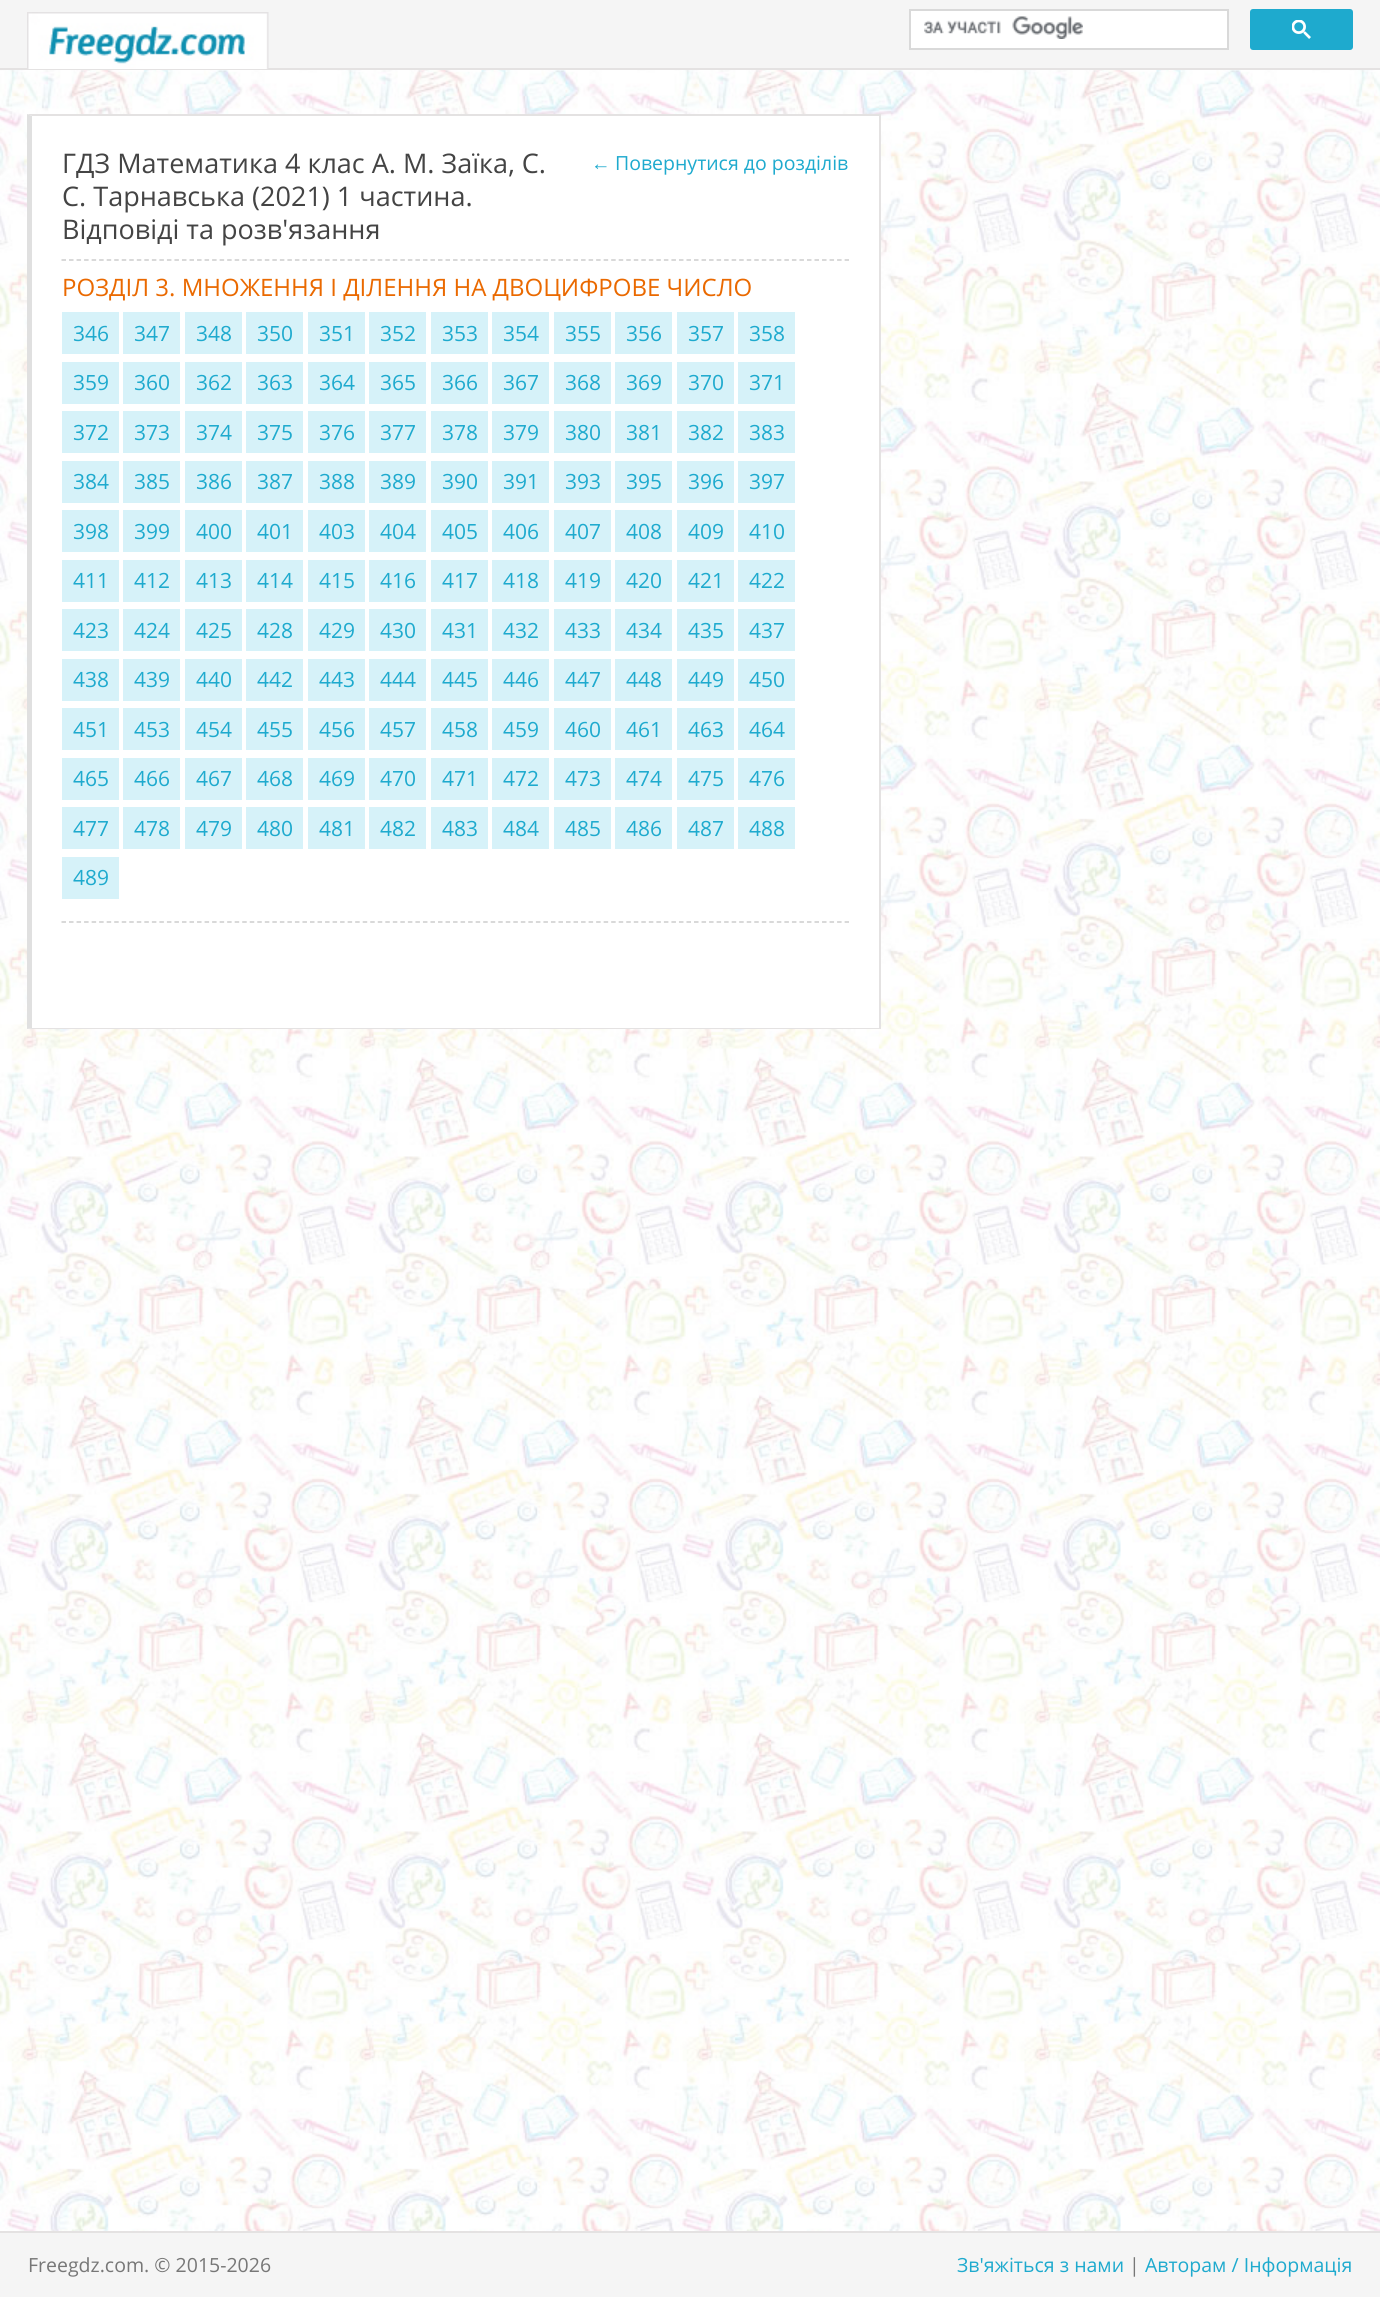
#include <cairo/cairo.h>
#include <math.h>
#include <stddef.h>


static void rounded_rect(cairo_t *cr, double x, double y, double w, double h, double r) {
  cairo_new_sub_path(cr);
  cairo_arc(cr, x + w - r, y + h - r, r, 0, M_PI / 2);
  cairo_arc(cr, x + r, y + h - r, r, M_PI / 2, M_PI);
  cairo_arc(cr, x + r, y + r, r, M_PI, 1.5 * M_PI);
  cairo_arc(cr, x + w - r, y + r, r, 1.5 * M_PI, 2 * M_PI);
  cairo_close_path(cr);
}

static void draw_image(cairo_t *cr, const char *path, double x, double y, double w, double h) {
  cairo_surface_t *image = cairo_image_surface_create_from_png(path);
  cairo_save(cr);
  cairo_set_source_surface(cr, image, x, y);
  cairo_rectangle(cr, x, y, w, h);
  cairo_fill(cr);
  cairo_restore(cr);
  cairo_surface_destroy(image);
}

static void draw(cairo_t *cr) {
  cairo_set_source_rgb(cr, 1, 1, 1);
  cairo_paint(cr);
  draw_image(cr, "images/1.png", 0, 70, 1380, 2161);
  cairo_set_source_rgb(cr, 245 / 255.0, 245 / 255.0, 245 / 255.0);
  cairo_rectangle(cr, 0, 0, 1380, 68);
  cairo_fill(cr);
  cairo_set_source_rgb(cr, 228 / 255.0, 226 / 255.0, 226 / 255.0);
  cairo_rectangle(cr, 0, 68, 1380, 2);
  cairo_fill(cr);
  draw_image(cr, "images/2.png", 27, 12, 242, 57);
  cairo_set_source_rgb(cr, 1, 1, 1);
  cairo_rectangle(cr, 910, 10, 318, 39);
  cairo_fill_preserve(cr);
  cairo_set_source_rgb(cr, 217 / 255.0, 217 / 255.0, 217 / 255.0);
  cairo_stroke(cr);
  draw_image(cr, "images/3.png", 924, 16, 159, 23);
  cairo_set_source_rgb(cr, 30 / 255.0, 170 / 255.0, 206 / 255.0);
  rounded_rect(cr, 1251, 10, 101, 39, 2);
  cairo_fill_preserve(cr);
  cairo_stroke(cr);
  draw_image(cr, "images/4.png", 1292, 20, 19, 19);
  cairo_set_source_rgb(cr, 1, 1, 1);
  cairo_rectangle(cr, 32, 116, 847, 912);
  cairo_fill(cr);
  cairo_set_source_rgb(cr, 228 / 255.0, 226 / 255.0, 226 / 255.0);
  cairo_new_path(cr);
  cairo_move_to(cr, 27, 114);
  cairo_line_to(cr, 880, 114);
  cairo_line_to(cr, 879, 116);
  cairo_line_to(cr, 32, 116);
  cairo_close_path(cr);
  cairo_fill(cr);
  cairo_rectangle(cr, 879, 114, 2, 915);
  cairo_fill(cr);
  cairo_new_path(cr);
  cairo_move_to(cr, 880, 1029);
  cairo_line_to(cr, 27, 1029);
  cairo_line_to(cr, 32, 1028);
  cairo_line_to(cr, 879, 1028);
  cairo_close_path(cr);
  cairo_fill(cr);
  cairo_set_source_rgb(cr, 224 / 255.0, 224 / 255.0, 224 / 255.0);
  cairo_new_path(cr);
  cairo_move_to(cr, 27, 1029);
  cairo_line_to(cr, 27, 114);
  cairo_line_to(cr, 32, 116);
  cairo_line_to(cr, 32, 1028);
  cairo_close_path(cr);
  cairo_fill(cr);
  cairo_new_path(cr);
  cairo_move_to(cr, 61.5, 260);
  cairo_line_to(cr, 849, 260);
  cairo_set_source_rgb(cr, 204 / 255.0, 204 / 255.0, 204 / 255.0);
  cairo_set_line_width(cr, 1.5);
  cairo_set_dash(cr, (double[]){4.5, 3.03}, 2, 0);
  cairo_stroke(cr);
  cairo_new_path(cr);
  cairo_move_to(cr, 61.5, 922);
  cairo_line_to(cr, 849, 922);
  cairo_stroke(cr);
  cairo_set_source_rgb(cr, 214 / 255.0, 242 / 255.0, 249 / 255.0);
  cairo_rectangle(cr, 62, 312, 57, 42);
  cairo_fill(cr);
  cairo_rectangle(cr, 123, 312, 57, 42);
  cairo_fill(cr);
  cairo_rectangle(cr, 185, 312, 57, 42);
  cairo_fill(cr);
  cairo_rectangle(cr, 246, 312, 57, 42);
  cairo_fill(cr);
  cairo_rectangle(cr, 308, 312, 57, 42);
  cairo_fill(cr);
  cairo_rectangle(cr, 369, 312, 57, 42);
  cairo_fill(cr);
  cairo_rectangle(cr, 431, 312, 57, 42);
  cairo_fill(cr);
  cairo_rectangle(cr, 492, 312, 57, 42);
  cairo_fill(cr);
  cairo_rectangle(cr, 554, 312, 57, 42);
  cairo_fill(cr);
  cairo_rectangle(cr, 615, 312, 57, 42);
  cairo_fill(cr);
  cairo_rectangle(cr, 677, 312, 57, 42);
  cairo_fill(cr);
  cairo_rectangle(cr, 738, 312, 57, 42);
  cairo_fill(cr);
  cairo_rectangle(cr, 62, 362, 57, 42);
  cairo_fill(cr);
  cairo_rectangle(cr, 123, 362, 57, 42);
  cairo_fill(cr);
  cairo_rectangle(cr, 185, 362, 57, 42);
  cairo_fill(cr);
  cairo_rectangle(cr, 246, 362, 57, 42);
  cairo_fill(cr);
  cairo_rectangle(cr, 308, 362, 57, 42);
  cairo_fill(cr);
  cairo_rectangle(cr, 369, 362, 57, 42);
  cairo_fill(cr);
  cairo_rectangle(cr, 431, 362, 57, 42);
  cairo_fill(cr);
  cairo_rectangle(cr, 492, 362, 57, 42);
  cairo_fill(cr);
  cairo_rectangle(cr, 554, 362, 57, 42);
  cairo_fill(cr);
  cairo_rectangle(cr, 615, 362, 57, 42);
  cairo_fill(cr);
  cairo_rectangle(cr, 677, 362, 57, 42);
  cairo_fill(cr);
  cairo_rectangle(cr, 738, 362, 57, 42);
  cairo_fill(cr);
  cairo_rectangle(cr, 62, 411, 57, 42);
  cairo_fill(cr);
  cairo_rectangle(cr, 123, 411, 57, 42);
  cairo_fill(cr);
  cairo_rectangle(cr, 185, 411, 57, 42);
  cairo_fill(cr);
  cairo_rectangle(cr, 246, 411, 57, 42);
  cairo_fill(cr);
  cairo_rectangle(cr, 308, 411, 57, 42);
  cairo_fill(cr);
  cairo_rectangle(cr, 369, 411, 57, 42);
  cairo_fill(cr);
  cairo_rectangle(cr, 431, 411, 57, 42);
  cairo_fill(cr);
  cairo_rectangle(cr, 492, 411, 57, 42);
  cairo_fill(cr);
  cairo_rectangle(cr, 554, 411, 57, 42);
  cairo_fill(cr);
  cairo_rectangle(cr, 615, 411, 57, 42);
  cairo_fill(cr);
  cairo_rectangle(cr, 677, 411, 57, 42);
  cairo_fill(cr);
  cairo_rectangle(cr, 738, 411, 57, 42);
  cairo_fill(cr);
  cairo_rectangle(cr, 62, 461, 57, 42);
  cairo_fill(cr);
  cairo_rectangle(cr, 123, 461, 57, 42);
  cairo_fill(cr);
  cairo_rectangle(cr, 185, 461, 57, 42);
  cairo_fill(cr);
  cairo_rectangle(cr, 246, 461, 57, 42);
  cairo_fill(cr);
  cairo_rectangle(cr, 308, 461, 57, 42);
  cairo_fill(cr);
  cairo_rectangle(cr, 369, 461, 57, 42);
  cairo_fill(cr);
  cairo_rectangle(cr, 431, 461, 57, 42);
  cairo_fill(cr);
  cairo_rectangle(cr, 492, 461, 57, 42);
  cairo_fill(cr);
  cairo_rectangle(cr, 554, 461, 57, 42);
  cairo_fill(cr);
  cairo_rectangle(cr, 615, 461, 57, 42);
  cairo_fill(cr);
  cairo_rectangle(cr, 677, 461, 57, 42);
  cairo_fill(cr);
  cairo_rectangle(cr, 738, 461, 57, 42);
  cairo_fill(cr);
  cairo_rectangle(cr, 62, 510, 57, 42);
  cairo_fill(cr);
  cairo_rectangle(cr, 123, 510, 57, 42);
  cairo_fill(cr);
  cairo_rectangle(cr, 185, 510, 57, 42);
  cairo_fill(cr);
  cairo_rectangle(cr, 246, 510, 57, 42);
  cairo_fill(cr);
  cairo_rectangle(cr, 308, 510, 57, 42);
  cairo_fill(cr);
  cairo_rectangle(cr, 369, 510, 57, 42);
  cairo_fill(cr);
  cairo_rectangle(cr, 431, 510, 57, 42);
  cairo_fill(cr);
  cairo_rectangle(cr, 492, 510, 57, 42);
  cairo_fill(cr);
  cairo_rectangle(cr, 554, 510, 57, 42);
  cairo_fill(cr);
  cairo_rectangle(cr, 615, 510, 57, 42);
  cairo_fill(cr);
  cairo_rectangle(cr, 677, 510, 57, 42);
  cairo_fill(cr);
  cairo_rectangle(cr, 738, 510, 57, 42);
  cairo_fill(cr);
  cairo_rectangle(cr, 62, 560, 57, 42);
  cairo_fill(cr);
  cairo_rectangle(cr, 123, 560, 57, 42);
  cairo_fill(cr);
  cairo_rectangle(cr, 185, 560, 57, 42);
  cairo_fill(cr);
  cairo_rectangle(cr, 246, 560, 57, 42);
  cairo_fill(cr);
  cairo_rectangle(cr, 308, 560, 57, 42);
  cairo_fill(cr);
  cairo_rectangle(cr, 369, 560, 57, 42);
  cairo_fill(cr);
  cairo_rectangle(cr, 431, 560, 57, 42);
  cairo_fill(cr);
  cairo_rectangle(cr, 492, 560, 57, 42);
  cairo_fill(cr);
  cairo_rectangle(cr, 554, 560, 57, 42);
  cairo_fill(cr);
  cairo_rectangle(cr, 615, 560, 57, 42);
  cairo_fill(cr);
  cairo_rectangle(cr, 677, 560, 57, 42);
  cairo_fill(cr);
  cairo_rectangle(cr, 738, 560, 57, 42);
  cairo_fill(cr);
  cairo_rectangle(cr, 62, 609, 57, 42);
  cairo_fill(cr);
  cairo_rectangle(cr, 123, 609, 57, 42);
  cairo_fill(cr);
  cairo_rectangle(cr, 185, 609, 57, 42);
  cairo_fill(cr);
  cairo_rectangle(cr, 246, 609, 57, 42);
  cairo_fill(cr);
  cairo_rectangle(cr, 308, 609, 57, 42);
  cairo_fill(cr);
  cairo_rectangle(cr, 369, 609, 57, 42);
  cairo_fill(cr);
  cairo_rectangle(cr, 431, 609, 57, 42);
  cairo_fill(cr);
  cairo_rectangle(cr, 492, 609, 57, 42);
  cairo_fill(cr);
  cairo_rectangle(cr, 554, 609, 57, 42);
  cairo_fill(cr);
  cairo_rectangle(cr, 615, 609, 57, 42);
  cairo_fill(cr);
  cairo_rectangle(cr, 677, 609, 57, 42);
  cairo_fill(cr);
  cairo_rectangle(cr, 738, 609, 57, 42);
  cairo_fill(cr);
  cairo_rectangle(cr, 62, 659, 57, 42);
  cairo_fill(cr);
  cairo_rectangle(cr, 123, 659, 57, 42);
  cairo_fill(cr);
  cairo_rectangle(cr, 185, 659, 57, 42);
  cairo_fill(cr);
  cairo_rectangle(cr, 246, 659, 57, 42);
  cairo_fill(cr);
  cairo_rectangle(cr, 308, 659, 57, 42);
  cairo_fill(cr);
  cairo_rectangle(cr, 369, 659, 57, 42);
  cairo_fill(cr);
  cairo_rectangle(cr, 431, 659, 57, 42);
  cairo_fill(cr);
  cairo_rectangle(cr, 492, 659, 57, 42);
  cairo_fill(cr);
  cairo_rectangle(cr, 554, 659, 57, 42);
  cairo_fill(cr);
  cairo_rectangle(cr, 615, 659, 57, 42);
  cairo_fill(cr);
  cairo_rectangle(cr, 677, 659, 57, 42);
  cairo_fill(cr);
  cairo_rectangle(cr, 738, 659, 57, 42);
  cairo_fill(cr);
  cairo_rectangle(cr, 62, 708, 57, 42);
  cairo_fill(cr);
  cairo_rectangle(cr, 123, 708, 57, 42);
  cairo_fill(cr);
  cairo_rectangle(cr, 185, 708, 57, 42);
  cairo_fill(cr);
  cairo_rectangle(cr, 246, 708, 57, 42);
  cairo_fill(cr);
  cairo_rectangle(cr, 308, 708, 57, 42);
  cairo_fill(cr);
  cairo_rectangle(cr, 369, 708, 57, 42);
  cairo_fill(cr);
  cairo_rectangle(cr, 431, 708, 57, 42);
  cairo_fill(cr);
  cairo_rectangle(cr, 492, 708, 57, 42);
  cairo_fill(cr);
  cairo_rectangle(cr, 554, 708, 57, 42);
  cairo_fill(cr);
  cairo_rectangle(cr, 615, 708, 57, 42);
  cairo_fill(cr);
  cairo_rectangle(cr, 677, 708, 57, 42);
  cairo_fill(cr);
  cairo_rectangle(cr, 738, 708, 57, 42);
  cairo_fill(cr);
  cairo_rectangle(cr, 62, 758, 57, 42);
  cairo_fill(cr);
  cairo_rectangle(cr, 123, 758, 57, 42);
  cairo_fill(cr);
  cairo_rectangle(cr, 185, 758, 57, 42);
  cairo_fill(cr);
  cairo_rectangle(cr, 246, 758, 57, 42);
  cairo_fill(cr);
  cairo_rectangle(cr, 308, 758, 57, 42);
  cairo_fill(cr);
  cairo_rectangle(cr, 369, 758, 57, 42);
  cairo_fill(cr);
  cairo_rectangle(cr, 431, 758, 57, 42);
  cairo_fill(cr);
  cairo_rectangle(cr, 492, 758, 57, 42);
  cairo_fill(cr);
  cairo_rectangle(cr, 554, 758, 57, 42);
  cairo_fill(cr);
  cairo_rectangle(cr, 615, 758, 57, 42);
  cairo_fill(cr);
  cairo_rectangle(cr, 677, 758, 57, 42);
  cairo_fill(cr);
  cairo_rectangle(cr, 738, 758, 57, 42);
  cairo_fill(cr);
  cairo_rectangle(cr, 62, 807, 57, 42);
  cairo_fill(cr);
  cairo_rectangle(cr, 123, 807, 57, 42);
  cairo_fill(cr);
  cairo_rectangle(cr, 185, 807, 57, 42);
  cairo_fill(cr);
  cairo_rectangle(cr, 246, 807, 57, 42);
  cairo_fill(cr);
  cairo_rectangle(cr, 308, 807, 57, 42);
  cairo_fill(cr);
  cairo_rectangle(cr, 369, 807, 57, 42);
  cairo_fill(cr);
  cairo_rectangle(cr, 431, 807, 57, 42);
  cairo_fill(cr);
  cairo_rectangle(cr, 492, 807, 57, 42);
  cairo_fill(cr);
  cairo_rectangle(cr, 554, 807, 57, 42);
  cairo_fill(cr);
  cairo_rectangle(cr, 615, 807, 57, 42);
  cairo_fill(cr);
  cairo_rectangle(cr, 677, 807, 57, 42);
  cairo_fill(cr);
  cairo_rectangle(cr, 738, 807, 57, 42);
  cairo_fill(cr);
  cairo_rectangle(cr, 62, 857, 57, 42);
  cairo_fill(cr);
  cairo_set_source_rgb(cr, 245 / 255.0, 245 / 255.0, 245 / 255.0);
  cairo_rectangle(cr, 0, 2233, 1380, 64);
  cairo_fill(cr);
  cairo_set_source_rgb(cr, 228 / 255.0, 226 / 255.0, 226 / 255.0);
  cairo_rectangle(cr, 0, 2231, 1380, 2);
  cairo_fill(cr);
  cairo_select_font_face(cr, "Open Sans", CAIRO_FONT_SLANT_NORMAL, CAIRO_FONT_WEIGHT_NORMAL);
  cairo_set_font_size(cr, 27);
  cairo_set_source_rgb(cr, 68 / 255.0, 68 / 255.0, 68 / 255.0);
  cairo_move_to(cr, 62, 173);
  cairo_show_text(cr, "ГДЗ Математика 4 клас А. М. Заїка, С.");
  cairo_move_to(cr, 62, 206);
  cairo_show_text(cr, "С. Тарнавська (2021) 1 частина.");
  cairo_move_to(cr, 62, 239);
  cairo_show_text(cr, "Відповіді та розв'язання");
  cairo_select_font_face(cr, "Liberation Sans", CAIRO_FONT_SLANT_NORMAL, CAIRO_FONT_WEIGHT_NORMAL);
  cairo_set_font_size(cr, 19.5);
  cairo_set_source_rgb(cr, 30 / 255.0, 170 / 255.0, 206 / 255.0);
  cairo_move_to(cr, 591, 170);
  cairo_show_text(cr, "←");
  cairo_select_font_face(cr, "Open Sans", CAIRO_FONT_SLANT_NORMAL, CAIRO_FONT_WEIGHT_NORMAL);
  cairo_move_to(cr, 615, 170);
  cairo_show_text(cr, "Повернутися до розділів");
  cairo_set_font_size(cr, 24);
  cairo_set_source_rgb(cr, 234 / 255.0, 105 / 255.0, 0);
  cairo_move_to(cr, 62, 296);
  cairo_show_text(cr, "РОЗДІЛ 3. МНОЖЕННЯ І ДІЛЕННЯ НА ДВОЦИФРОВЕ ЧИСЛО");
  cairo_set_font_size(cr, 21);
  cairo_set_source_rgb(cr, 30 / 255.0, 170 / 255.0, 206 / 255.0);
  cairo_move_to(cr, 73, 341);
  cairo_show_text(cr, "346");
  cairo_move_to(cr, 134, 341);
  cairo_show_text(cr, "347");
  cairo_move_to(cr, 196, 341);
  cairo_show_text(cr, "348");
  cairo_move_to(cr, 257, 341);
  cairo_show_text(cr, "350");
  cairo_move_to(cr, 319, 341);
  cairo_show_text(cr, "351");
  cairo_move_to(cr, 380, 341);
  cairo_show_text(cr, "352");
  cairo_move_to(cr, 442, 341);
  cairo_show_text(cr, "353");
  cairo_move_to(cr, 503, 341);
  cairo_show_text(cr, "354");
  cairo_move_to(cr, 565, 341);
  cairo_show_text(cr, "355");
  cairo_move_to(cr, 626, 341);
  cairo_show_text(cr, "356");
  cairo_move_to(cr, 688, 341);
  cairo_show_text(cr, "357");
  cairo_move_to(cr, 749, 341);
  cairo_show_text(cr, "358");
  cairo_move_to(cr, 73, 390);
  cairo_show_text(cr, "359");
  cairo_move_to(cr, 134, 390);
  cairo_show_text(cr, "360");
  cairo_move_to(cr, 196, 390);
  cairo_show_text(cr, "362");
  cairo_move_to(cr, 257, 390);
  cairo_show_text(cr, "363");
  cairo_move_to(cr, 319, 390);
  cairo_show_text(cr, "364");
  cairo_move_to(cr, 380, 390);
  cairo_show_text(cr, "365");
  cairo_move_to(cr, 442, 390);
  cairo_show_text(cr, "366");
  cairo_move_to(cr, 503, 390);
  cairo_show_text(cr, "367");
  cairo_move_to(cr, 565, 390);
  cairo_show_text(cr, "368");
  cairo_move_to(cr, 626, 390);
  cairo_show_text(cr, "369");
  cairo_move_to(cr, 688, 390);
  cairo_show_text(cr, "370");
  cairo_move_to(cr, 749, 390);
  cairo_show_text(cr, "371");
  cairo_move_to(cr, 73, 440);
  cairo_show_text(cr, "372");
  cairo_move_to(cr, 134, 440);
  cairo_show_text(cr, "373");
  cairo_move_to(cr, 196, 440);
  cairo_show_text(cr, "374");
  cairo_move_to(cr, 257, 440);
  cairo_show_text(cr, "375");
  cairo_move_to(cr, 319, 440);
  cairo_show_text(cr, "376");
  cairo_move_to(cr, 380, 440);
  cairo_show_text(cr, "377");
  cairo_move_to(cr, 442, 440);
  cairo_show_text(cr, "378");
  cairo_move_to(cr, 503, 440);
  cairo_show_text(cr, "379");
  cairo_move_to(cr, 565, 440);
  cairo_show_text(cr, "380");
  cairo_move_to(cr, 626, 440);
  cairo_show_text(cr, "381");
  cairo_move_to(cr, 688, 440);
  cairo_show_text(cr, "382");
  cairo_move_to(cr, 749, 440);
  cairo_show_text(cr, "383");
  cairo_move_to(cr, 73, 489);
  cairo_show_text(cr, "384");
  cairo_move_to(cr, 134, 489);
  cairo_show_text(cr, "385");
  cairo_move_to(cr, 196, 489);
  cairo_show_text(cr, "386");
  cairo_move_to(cr, 257, 489);
  cairo_show_text(cr, "387");
  cairo_move_to(cr, 319, 489);
  cairo_show_text(cr, "388");
  cairo_move_to(cr, 380, 489);
  cairo_show_text(cr, "389");
  cairo_move_to(cr, 442, 489);
  cairo_show_text(cr, "390");
  cairo_move_to(cr, 503, 489);
  cairo_show_text(cr, "391");
  cairo_move_to(cr, 565, 489);
  cairo_show_text(cr, "393");
  cairo_move_to(cr, 626, 489);
  cairo_show_text(cr, "395");
  cairo_move_to(cr, 688, 489);
  cairo_show_text(cr, "396");
  cairo_move_to(cr, 749, 489);
  cairo_show_text(cr, "397");
  cairo_move_to(cr, 73, 539);
  cairo_show_text(cr, "398");
  cairo_move_to(cr, 134, 539);
  cairo_show_text(cr, "399");
  cairo_move_to(cr, 196, 539);
  cairo_show_text(cr, "400");
  cairo_move_to(cr, 257, 539);
  cairo_show_text(cr, "401");
  cairo_move_to(cr, 319, 539);
  cairo_show_text(cr, "403");
  cairo_move_to(cr, 380, 539);
  cairo_show_text(cr, "404");
  cairo_move_to(cr, 442, 539);
  cairo_show_text(cr, "405");
  cairo_move_to(cr, 503, 539);
  cairo_show_text(cr, "406");
  cairo_move_to(cr, 565, 539);
  cairo_show_text(cr, "407");
  cairo_move_to(cr, 626, 539);
  cairo_show_text(cr, "408");
  cairo_move_to(cr, 688, 539);
  cairo_show_text(cr, "409");
  cairo_move_to(cr, 749, 539);
  cairo_show_text(cr, "410");
  cairo_move_to(cr, 73, 588);
  cairo_show_text(cr, "411");
  cairo_move_to(cr, 134, 588);
  cairo_show_text(cr, "412");
  cairo_move_to(cr, 196, 588);
  cairo_show_text(cr, "413");
  cairo_move_to(cr, 257, 588);
  cairo_show_text(cr, "414");
  cairo_move_to(cr, 319, 588);
  cairo_show_text(cr, "415");
  cairo_move_to(cr, 380, 588);
  cairo_show_text(cr, "416");
  cairo_move_to(cr, 442, 588);
  cairo_show_text(cr, "417");
  cairo_move_to(cr, 503, 588);
  cairo_show_text(cr, "418");
  cairo_move_to(cr, 565, 588);
  cairo_show_text(cr, "419");
  cairo_move_to(cr, 626, 588);
  cairo_show_text(cr, "420");
  cairo_move_to(cr, 688, 588);
  cairo_show_text(cr, "421");
  cairo_move_to(cr, 749, 588);
  cairo_show_text(cr, "422");
  cairo_move_to(cr, 73, 638);
  cairo_show_text(cr, "423");
  cairo_move_to(cr, 134, 638);
  cairo_show_text(cr, "424");
  cairo_move_to(cr, 196, 638);
  cairo_show_text(cr, "425");
  cairo_move_to(cr, 257, 638);
  cairo_show_text(cr, "428");
  cairo_move_to(cr, 319, 638);
  cairo_show_text(cr, "429");
  cairo_move_to(cr, 380, 638);
  cairo_show_text(cr, "430");
  cairo_move_to(cr, 442, 638);
  cairo_show_text(cr, "431");
  cairo_move_to(cr, 503, 638);
  cairo_show_text(cr, "432");
  cairo_move_to(cr, 565, 638);
  cairo_show_text(cr, "433");
  cairo_move_to(cr, 626, 638);
  cairo_show_text(cr, "434");
  cairo_move_to(cr, 688, 638);
  cairo_show_text(cr, "435");
  cairo_move_to(cr, 749, 638);
  cairo_show_text(cr, "437");
  cairo_move_to(cr, 73, 687);
  cairo_show_text(cr, "438");
  cairo_move_to(cr, 134, 687);
  cairo_show_text(cr, "439");
  cairo_move_to(cr, 196, 687);
  cairo_show_text(cr, "440");
  cairo_move_to(cr, 257, 687);
  cairo_show_text(cr, "442");
  cairo_move_to(cr, 319, 687);
  cairo_show_text(cr, "443");
  cairo_move_to(cr, 380, 687);
  cairo_show_text(cr, "444");
  cairo_move_to(cr, 442, 687);
  cairo_show_text(cr, "445");
  cairo_move_to(cr, 503, 687);
  cairo_show_text(cr, "446");
  cairo_move_to(cr, 565, 687);
  cairo_show_text(cr, "447");
  cairo_move_to(cr, 626, 687);
  cairo_show_text(cr, "448");
  cairo_move_to(cr, 688, 687);
  cairo_show_text(cr, "449");
  cairo_move_to(cr, 749, 687);
  cairo_show_text(cr, "450");
  cairo_move_to(cr, 73, 737);
  cairo_show_text(cr, "451");
  cairo_move_to(cr, 134, 737);
  cairo_show_text(cr, "453");
  cairo_move_to(cr, 196, 737);
  cairo_show_text(cr, "454");
  cairo_move_to(cr, 257, 737);
  cairo_show_text(cr, "455");
  cairo_move_to(cr, 319, 737);
  cairo_show_text(cr, "456");
  cairo_move_to(cr, 380, 737);
  cairo_show_text(cr, "457");
  cairo_move_to(cr, 442, 737);
  cairo_show_text(cr, "458");
  cairo_move_to(cr, 503, 737);
  cairo_show_text(cr, "459");
  cairo_move_to(cr, 565, 737);
  cairo_show_text(cr, "460");
  cairo_move_to(cr, 626, 737);
  cairo_show_text(cr, "461");
  cairo_move_to(cr, 688, 737);
  cairo_show_text(cr, "463");
  cairo_move_to(cr, 749, 737);
  cairo_show_text(cr, "464");
  cairo_move_to(cr, 73, 786);
  cairo_show_text(cr, "465");
  cairo_move_to(cr, 134, 786);
  cairo_show_text(cr, "466");
  cairo_move_to(cr, 196, 786);
  cairo_show_text(cr, "467");
  cairo_move_to(cr, 257, 786);
  cairo_show_text(cr, "468");
  cairo_move_to(cr, 319, 786);
  cairo_show_text(cr, "469");
  cairo_move_to(cr, 380, 786);
  cairo_show_text(cr, "470");
  cairo_move_to(cr, 442, 786);
  cairo_show_text(cr, "471");
  cairo_move_to(cr, 503, 786);
  cairo_show_text(cr, "472");
  cairo_move_to(cr, 565, 786);
  cairo_show_text(cr, "473");
  cairo_move_to(cr, 626, 786);
  cairo_show_text(cr, "474");
  cairo_move_to(cr, 688, 786);
  cairo_show_text(cr, "475");
  cairo_move_to(cr, 749, 786);
  cairo_show_text(cr, "476");
  cairo_move_to(cr, 73, 836);
  cairo_show_text(cr, "477");
  cairo_move_to(cr, 134, 836);
  cairo_show_text(cr, "478");
  cairo_move_to(cr, 196, 836);
  cairo_show_text(cr, "479");
  cairo_move_to(cr, 257, 836);
  cairo_show_text(cr, "480");
  cairo_move_to(cr, 319, 836);
  cairo_show_text(cr, "481");
  cairo_move_to(cr, 380, 836);
  cairo_show_text(cr, "482");
  cairo_move_to(cr, 442, 836);
  cairo_show_text(cr, "483");
  cairo_move_to(cr, 503, 836);
  cairo_show_text(cr, "484");
  cairo_move_to(cr, 565, 836);
  cairo_show_text(cr, "485");
  cairo_move_to(cr, 626, 836);
  cairo_show_text(cr, "486");
  cairo_move_to(cr, 688, 836);
  cairo_show_text(cr, "487");
  cairo_move_to(cr, 749, 836);
  cairo_show_text(cr, "488");
  cairo_move_to(cr, 73, 885);
  cairo_show_text(cr, "489");
  cairo_set_font_size(cr, 19.5);
  cairo_set_source_rgb(cr, 119 / 255.0, 119 / 255.0, 119 / 255.0);
  cairo_move_to(cr, 28, 2272);
  cairo_show_text(cr, "Freegdz.com. © 2015-2026");
  cairo_set_source_rgb(cr, 30 / 255.0, 170 / 255.0, 206 / 255.0);
  cairo_move_to(cr, 957, 2272);
  cairo_show_text(cr, "Зв'яжіться з нами");
  cairo_set_source_rgb(cr, 119 / 255.0, 119 / 255.0, 119 / 255.0);
  cairo_move_to(cr, 1129, 2272);
  cairo_show_text(cr, "|");
  cairo_set_source_rgb(cr, 30 / 255.0, 170 / 255.0, 206 / 255.0);
  cairo_move_to(cr, 1145, 2272);
  cairo_show_text(cr, "Авторам / Інформація");
}

int main(void) {
  cairo_surface_t *surface = cairo_image_surface_create(CAIRO_FORMAT_RGB24, 1380, 2297);
  cairo_t *cr = cairo_create(surface);
  cairo_font_options_t *options = cairo_font_options_create();
  cairo_font_options_set_hint_metrics(options, CAIRO_HINT_METRICS_OFF);
  cairo_font_options_set_hint_style(options, CAIRO_HINT_STYLE_NONE);
  cairo_set_font_options(cr, options);
  cairo_set_miter_limit(cr, 4);
  draw(cr);
  cairo_surface_write_to_png(surface, "out.png");
  cairo_font_options_destroy(options);
  cairo_destroy(cr);
  cairo_surface_destroy(surface);
  return 0;
}
